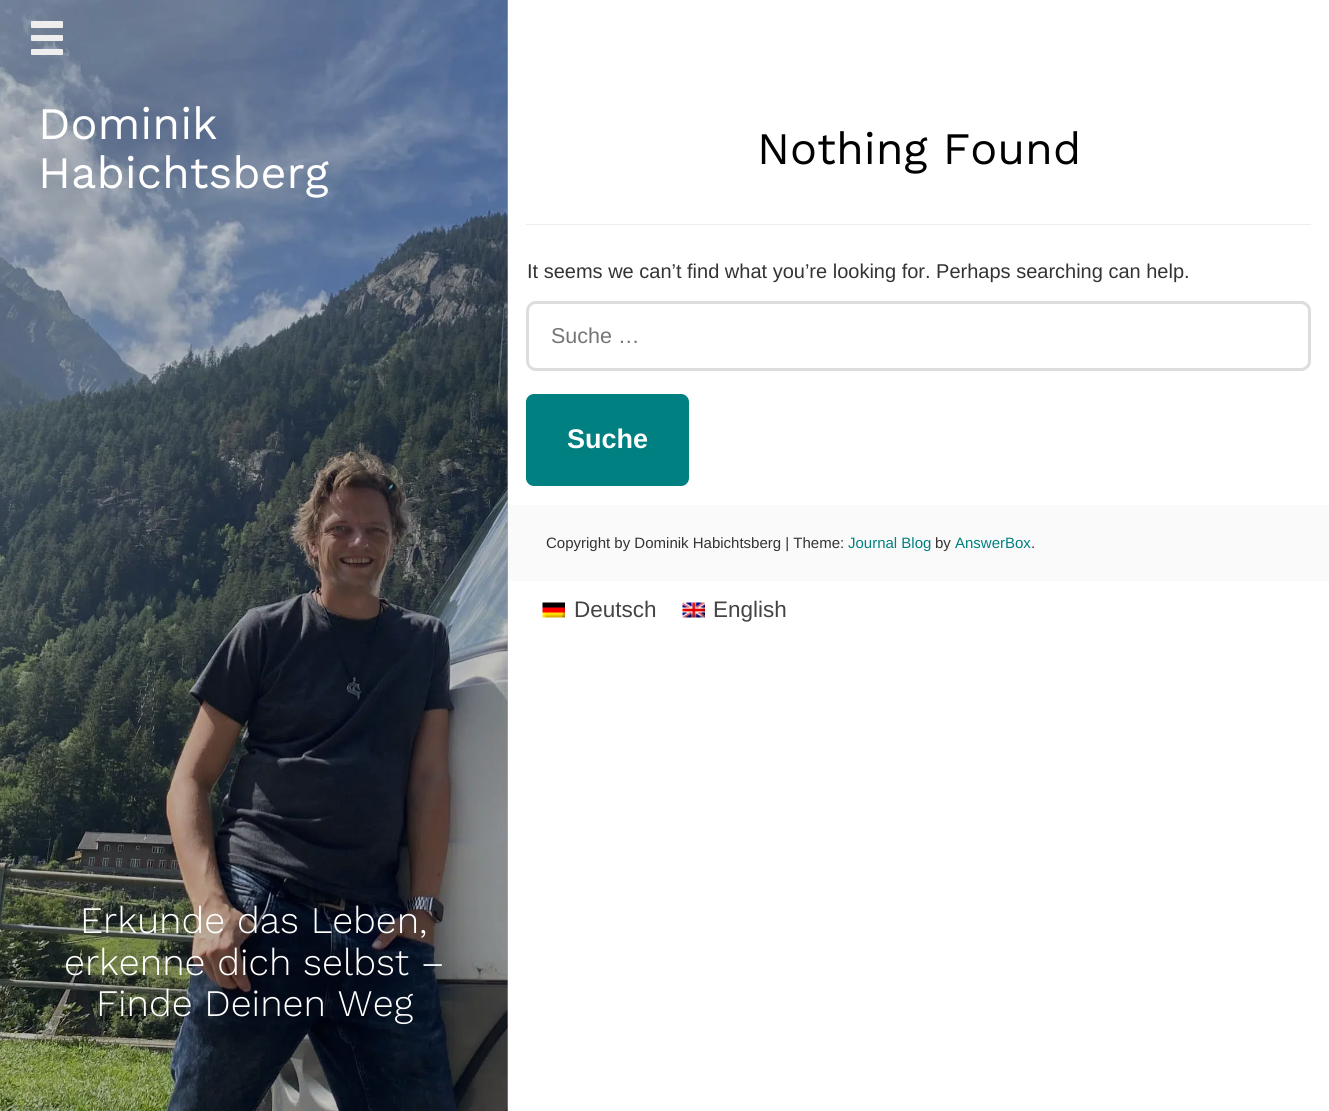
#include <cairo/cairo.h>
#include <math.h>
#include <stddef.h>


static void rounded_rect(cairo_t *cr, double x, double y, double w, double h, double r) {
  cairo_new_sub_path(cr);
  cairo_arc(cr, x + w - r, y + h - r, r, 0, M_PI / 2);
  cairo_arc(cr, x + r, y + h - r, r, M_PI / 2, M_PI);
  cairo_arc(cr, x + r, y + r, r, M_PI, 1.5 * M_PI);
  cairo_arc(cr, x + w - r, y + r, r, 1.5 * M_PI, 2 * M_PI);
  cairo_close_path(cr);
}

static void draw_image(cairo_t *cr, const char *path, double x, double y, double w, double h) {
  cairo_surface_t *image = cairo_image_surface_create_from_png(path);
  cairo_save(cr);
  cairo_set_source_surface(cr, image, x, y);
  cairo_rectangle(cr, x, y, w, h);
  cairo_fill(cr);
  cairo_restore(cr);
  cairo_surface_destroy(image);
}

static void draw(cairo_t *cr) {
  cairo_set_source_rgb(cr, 1, 1, 1);
  cairo_paint(cr);
  cairo_set_source_rgb(cr, 191 / 255.0, 191 / 255.0, 191 / 255.0);
  cairo_rectangle(cr, 507, 0, 1, 1111);
  cairo_fill(cr);
  draw_image(cr, "images/1.png", 0, 0, 508, 1111);
  cairo_set_source_rgb(cr, 238 / 255.0, 238 / 255.0, 238 / 255.0);
  rounded_rect(cr, 31, 35, 32, 6, 1);
  cairo_fill(cr);
  rounded_rect(cr, 31, 21, 32, 7, 1);
  cairo_fill(cr);
  rounded_rect(cr, 31, 49, 32, 6, 1);
  cairo_fill(cr);
  cairo_rectangle(cr, 526, 224, 785, 1);
  cairo_fill(cr);
  rounded_rect(cr, 527.5, 302.5, 782, 67, 8.5);
  cairo_set_source_rgb(cr, 221 / 255.0, 221 / 255.0, 221 / 255.0);
  cairo_set_line_width(cr, 3);
  cairo_stroke(cr);
  cairo_set_source_rgb(cr, 0, 128 / 255.0, 128 / 255.0);
  rounded_rect(cr, 526, 394, 163, 92, 8);
  cairo_fill(cr);
  cairo_set_source_rgb(cr, 250 / 255.0, 250 / 255.0, 250 / 255.0);
  cairo_rectangle(cr, 508, 505, 821, 76);
  cairo_fill(cr);
  draw_image(cr, "images/2.png", 542, 602, 23, 16);
  draw_image(cr, "images/3.png", 682, 602, 23, 16);
  cairo_select_font_face(cr, "Work Sans", CAIRO_FONT_SLANT_NORMAL, CAIRO_FONT_WEIGHT_NORMAL);
  cairo_set_font_size(cr, 45);
  cairo_set_source_rgb(cr, 1, 1, 1);
  cairo_move_to(cr, 38, 139);
  cairo_show_text(cr, "Dominik");
  cairo_move_to(cr, 38, 188);
  cairo_show_text(cr, "Habichtsberg");
  cairo_select_font_face(cr, "Work Sans Light", CAIRO_FONT_SLANT_NORMAL, CAIRO_FONT_WEIGHT_NORMAL);
  cairo_set_font_size(cr, 37.5);
  cairo_move_to(cr, 80, 933);
  cairo_show_text(cr, "Erkunde das Leben,");
  cairo_move_to(cr, 64, 975);
  cairo_show_text(cr, "erkenne dich selbst –");
  cairo_move_to(cr, 96, 1016);
  cairo_show_text(cr, "Finde Deinen Weg");
  cairo_select_font_face(cr, "Work Sans", CAIRO_FONT_SLANT_NORMAL, CAIRO_FONT_WEIGHT_NORMAL);
  cairo_set_font_size(cr, 45);
  cairo_set_source_rgb(cr, 0, 0, 0);
  cairo_move_to(cr, 757, 164);
  cairo_show_text(cr, "Nothing Found");
  cairo_select_font_face(cr, "Liberation Sans", CAIRO_FONT_SLANT_NORMAL, CAIRO_FONT_WEIGHT_NORMAL);
  cairo_set_font_size(cr, 20);
  cairo_set_source_rgb(cr, 51 / 255.0, 51 / 255.0, 51 / 255.0);
  cairo_move_to(cr, 527, 278);
  cairo_show_text(cr, "It seems we can’t find what you’re looking for. Perhaps searching can help.");
  cairo_set_font_size(cr, 21.5);
  cairo_set_source_rgb(cr, 117 / 255.0, 117 / 255.0, 117 / 255.0);
  cairo_move_to(cr, 551, 343);
  cairo_show_text(cr, "Suche …");
  cairo_select_font_face(cr, "Liberation Sans", CAIRO_FONT_SLANT_NORMAL, CAIRO_FONT_WEIGHT_BOLD);
  cairo_set_font_size(cr, 27);
  cairo_set_source_rgb(cr, 1, 1, 1);
  cairo_move_to(cr, 567, 448);
  cairo_show_text(cr, "Suche");
  cairo_select_font_face(cr, "Liberation Sans", CAIRO_FONT_SLANT_NORMAL, CAIRO_FONT_WEIGHT_NORMAL);
  cairo_set_font_size(cr, 15);
  cairo_set_source_rgb(cr, 51 / 255.0, 51 / 255.0, 51 / 255.0);
  cairo_move_to(cr, 546, 548);
  cairo_show_text(cr, "Copyright by Dominik Habichtsberg | Theme:");
  cairo_set_source_rgb(cr, 0, 128 / 255.0, 128 / 255.0);
  cairo_move_to(cr, 848, 548);
  cairo_show_text(cr, "Journal Blog");
  cairo_set_source_rgb(cr, 51 / 255.0, 51 / 255.0, 51 / 255.0);
  cairo_move_to(cr, 935, 548);
  cairo_show_text(cr, "by");
  cairo_set_source_rgb(cr, 0, 128 / 255.0, 128 / 255.0);
  cairo_move_to(cr, 955, 548);
  cairo_show_text(cr, "AnswerBox");
  cairo_set_source_rgb(cr, 51 / 255.0, 51 / 255.0, 51 / 255.0);
  cairo_move_to(cr, 1031, 548);
  cairo_show_text(cr, ".");
  cairo_set_font_size(cr, 22.5);
  cairo_set_source_rgb(cr, 68 / 255.0, 68 / 255.0, 68 / 255.0);
  cairo_move_to(cr, 574, 617);
  cairo_show_text(cr, "Deutsch");
  cairo_move_to(cr, 713, 617);
  cairo_show_text(cr, "English");
}

int main(void) {
  cairo_surface_t *surface = cairo_image_surface_create(CAIRO_FORMAT_RGB24, 1329, 1111);
  cairo_t *cr = cairo_create(surface);
  cairo_font_options_t *options = cairo_font_options_create();
  cairo_font_options_set_hint_metrics(options, CAIRO_HINT_METRICS_OFF);
  cairo_font_options_set_hint_style(options, CAIRO_HINT_STYLE_NONE);
  cairo_set_font_options(cr, options);
  cairo_set_miter_limit(cr, 4);
  draw(cr);
  cairo_surface_write_to_png(surface, "out.png");
  cairo_font_options_destroy(options);
  cairo_destroy(cr);
  cairo_surface_destroy(surface);
  return 0;
}
